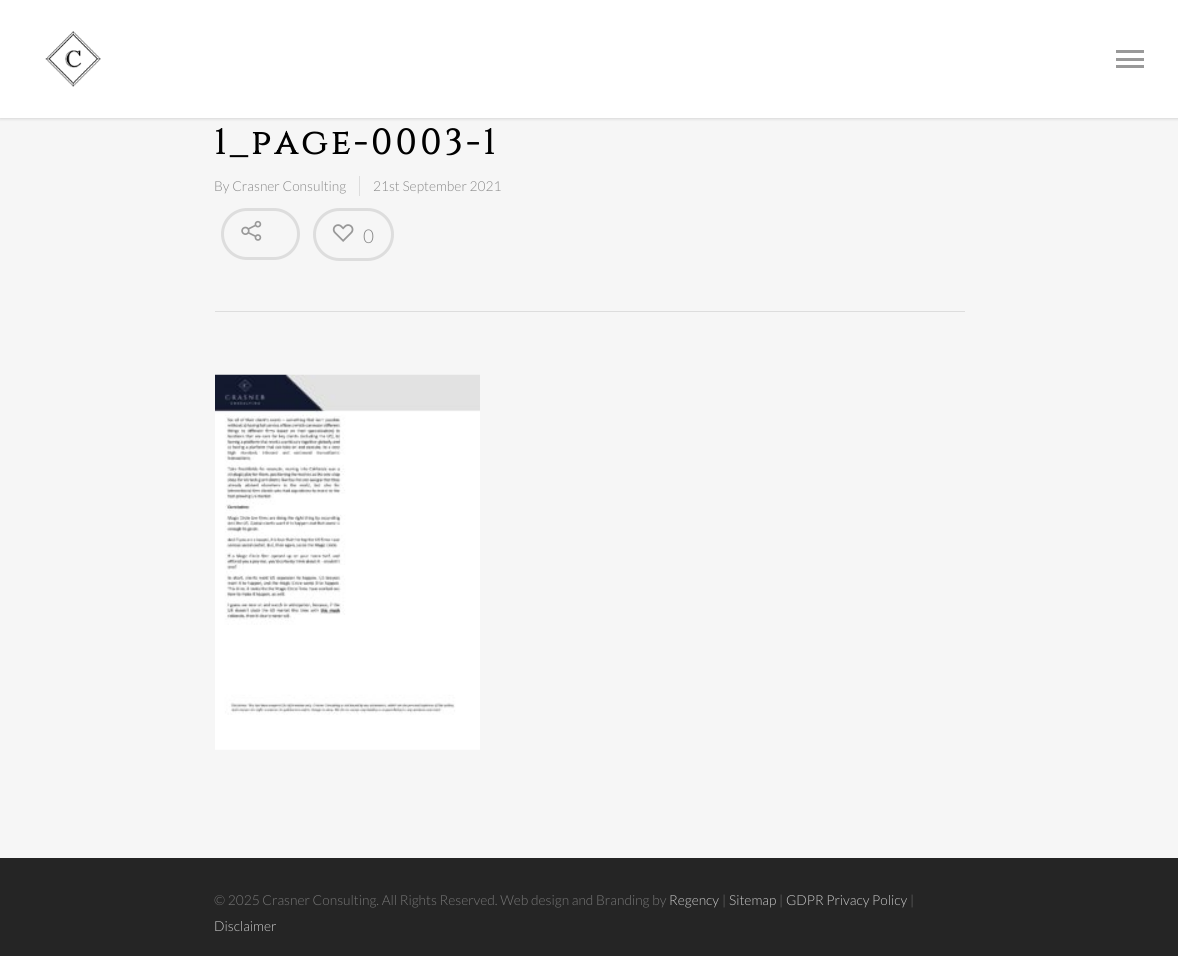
#include <cairo/cairo.h>
#include <math.h>
#include <stddef.h>


static void draw_spaced(cairo_t *cr, double x, double y, const char *s, double letter, double word) {
  cairo_move_to(cr, x, y);
  while (*s) {
    char ch[5] = {0};
    int n = 0;
    do ch[n++] = *s++; while ((*s & 0xC0) == 0x80);
    cairo_show_text(cr, ch);
    cairo_rel_move_to(cr, letter + word * (*ch == ' '), 0);
  }
}

static void rounded_rect(cairo_t *cr, double x, double y, double w, double h, double r) {
  cairo_new_sub_path(cr);
  cairo_arc(cr, x + w - r, y + h - r, r, 0, M_PI / 2);
  cairo_arc(cr, x + r, y + h - r, r, M_PI / 2, M_PI);
  cairo_arc(cr, x + r, y + r, r, M_PI, 1.5 * M_PI);
  cairo_arc(cr, x + w - r, y + r, r, 1.5 * M_PI, 2 * M_PI);
  cairo_close_path(cr);
}

static void draw_shadow(cairo_t *cr, double x, double y, double w, double h, double r, double blur, double alpha) {
  cairo_push_group_with_content(cr, CAIRO_CONTENT_ALPHA);
  cairo_set_operator(cr, CAIRO_OPERATOR_SOURCE);
  for (int i = 15; i >= -15 && fmin(w, h) + blur * i / 3 > 0; i -= 2) {
    double e = blur * i / 6;
    cairo_set_source_rgba(cr, 0, 0, 0, alpha * erfc((i - 1) / 8.5) / 2);
    rounded_rect(cr, x - e, y - e, w + 2 * e, h + 2 * e, fmax(0, fmin(r + e + blur * .6, fmin(w, h) / 2 + e)));
    cairo_fill(cr);
  }
  cairo_pattern_t *soft = cairo_pop_group(cr);
  cairo_mask(cr, soft);
  cairo_pattern_destroy(soft);
}

static void draw_image(cairo_t *cr, const char *path, double x, double y, double w, double h) {
  cairo_surface_t *image = cairo_image_surface_create_from_png(path);
  cairo_save(cr);
  cairo_set_source_surface(cr, image, x, y);
  cairo_rectangle(cr, x, y, w, h);
  cairo_fill(cr);
  cairo_restore(cr);
  cairo_surface_destroy(image);
}

static void draw(cairo_t *cr) {
  cairo_set_source_rgb(cr, 37 / 255.0, 37 / 255.0, 37 / 255.0);
  cairo_paint(cr);
  cairo_set_source_rgb(cr, 246 / 255.0, 246 / 255.0, 246 / 255.0);
  cairo_rectangle(cr, 0, 118, 1178, 740);
  cairo_fill(cr);
  cairo_set_source_rgb(cr, 0, 0, 0);
  draw_shadow(cr, 0, 0, 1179, 118, 0, 2, 0.22);
  cairo_set_source_rgb(cr, 1, 1, 1);
  cairo_rectangle(cr, 0, 0, 1178, 118);
  cairo_fill(cr);
  draw_image(cr, "images/1.png", 45, 31, 56, 56);
  cairo_set_source_rgb(cr, 153 / 255.0, 153 / 255.0, 153 / 255.0);
  cairo_rectangle(cr, 1116, 50, 28, 3);
  cairo_fill(cr);
  cairo_rectangle(cr, 1116, 65, 28, 3);
  cairo_fill(cr);
  cairo_rectangle(cr, 1116, 58, 28, 3);
  cairo_fill(cr);
  cairo_set_source_rgb(cr, 221 / 255.0, 221 / 255.0, 221 / 255.0);
  cairo_rectangle(cr, 215, 311, 750, 1);
  cairo_fill(cr);
  cairo_rectangle(cr, 359, 176, 1, 20);
  cairo_fill(cr);
  rounded_rect(cr, 222.5, 209.5, 76, 49, 24.5);
  cairo_set_line_width(cr, 3);
  cairo_stroke(cr);
  draw_image(cr, "images/2.png", 241, 220, 21, 21);
  rounded_rect(cr, 314.5, 209.5, 78, 50, 25);
  cairo_stroke(cr);
  draw_image(cr, "images/3.png", 332, 224, 22, 18);
  draw_image(cr, "images/4.png", 215, 374, 265, 376);
  cairo_select_font_face(cr, "Cinzel", CAIRO_FONT_SLANT_NORMAL, CAIRO_FONT_WEIGHT_BOLD);
  cairo_set_font_size(cr, 35);
  cairo_set_source_rgb(cr, 0, 0, 0);
  draw_spaced(cr, 214, 154, "1_page-0003-1", 3.75, 0);
  cairo_select_font_face(cr, "Lato Light", CAIRO_FONT_SLANT_NORMAL, CAIRO_FONT_WEIGHT_NORMAL);
  cairo_set_font_size(cr, 13.75);
  cairo_set_source_rgb(cr, 136 / 255.0, 136 / 255.0, 136 / 255.0);
  cairo_move_to(cr, 214, 191);
  cairo_show_text(cr, "By Crasner Consulting");
  cairo_move_to(cr, 373, 191);
  cairo_show_text(cr, "21st September 2021");
  cairo_set_font_size(cr, 19);
  cairo_move_to(cr, 363, 243);
  cairo_show_text(cr, "0");
  cairo_set_font_size(cr, 13.75);
  cairo_set_source_rgb(cr, 119 / 255.0, 119 / 255.0, 119 / 255.0);
  cairo_move_to(cr, 214, 905);
  cairo_show_text(cr, "© 2025 Crasner Consulting. All Rights Reserved. Web design and Branding by");
  cairo_set_source_rgb(cr, 204 / 255.0, 204 / 255.0, 204 / 255.0);
  cairo_move_to(cr, 669, 905);
  cairo_show_text(cr, "Regency");
  cairo_set_source_rgb(cr, 119 / 255.0, 119 / 255.0, 119 / 255.0);
  cairo_move_to(cr, 722, 905);
  cairo_show_text(cr, "|");
  cairo_set_source_rgb(cr, 204 / 255.0, 204 / 255.0, 204 / 255.0);
  cairo_move_to(cr, 729, 905);
  cairo_show_text(cr, "Sitemap");
  cairo_set_source_rgb(cr, 119 / 255.0, 119 / 255.0, 119 / 255.0);
  cairo_move_to(cr, 779, 905);
  cairo_show_text(cr, "|");
  cairo_set_source_rgb(cr, 204 / 255.0, 204 / 255.0, 204 / 255.0);
  cairo_move_to(cr, 786, 905);
  cairo_show_text(cr, "GDPR Privacy Policy");
  cairo_set_source_rgb(cr, 119 / 255.0, 119 / 255.0, 119 / 255.0);
  cairo_move_to(cr, 910, 905);
  cairo_show_text(cr, "|");
  cairo_set_source_rgb(cr, 204 / 255.0, 204 / 255.0, 204 / 255.0);
  cairo_move_to(cr, 214, 931);
  cairo_show_text(cr, "Disclaimer");
}

int main(void) {
  cairo_surface_t *surface = cairo_image_surface_create(CAIRO_FORMAT_RGB24, 1178, 956);
  cairo_t *cr = cairo_create(surface);
  cairo_font_options_t *options = cairo_font_options_create();
  cairo_font_options_set_hint_metrics(options, CAIRO_HINT_METRICS_OFF);
  cairo_font_options_set_hint_style(options, CAIRO_HINT_STYLE_NONE);
  cairo_set_font_options(cr, options);
  cairo_set_miter_limit(cr, 4);
  draw(cr);
  cairo_surface_write_to_png(surface, "out.png");
  cairo_font_options_destroy(options);
  cairo_destroy(cr);
  cairo_surface_destroy(surface);
  return 0;
}
